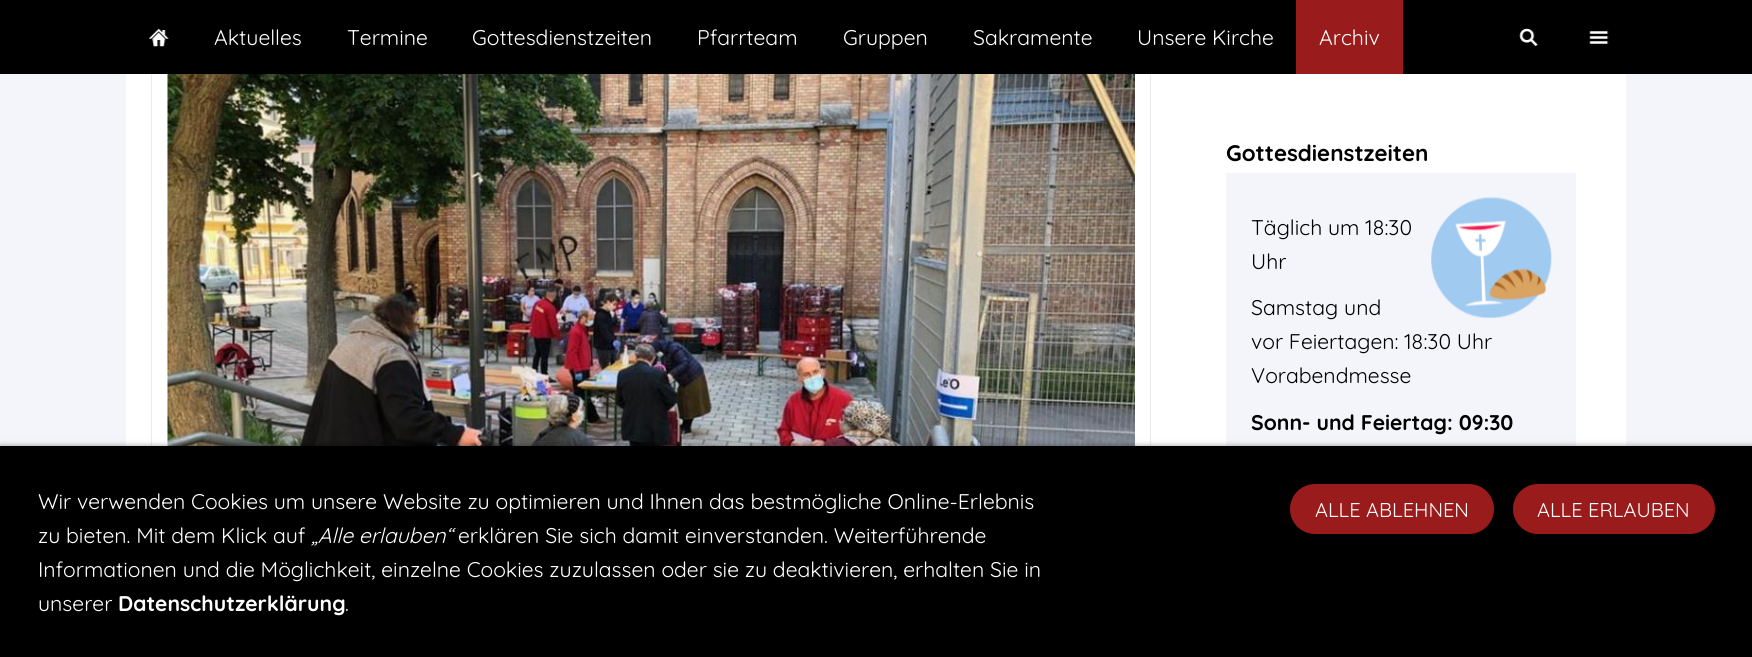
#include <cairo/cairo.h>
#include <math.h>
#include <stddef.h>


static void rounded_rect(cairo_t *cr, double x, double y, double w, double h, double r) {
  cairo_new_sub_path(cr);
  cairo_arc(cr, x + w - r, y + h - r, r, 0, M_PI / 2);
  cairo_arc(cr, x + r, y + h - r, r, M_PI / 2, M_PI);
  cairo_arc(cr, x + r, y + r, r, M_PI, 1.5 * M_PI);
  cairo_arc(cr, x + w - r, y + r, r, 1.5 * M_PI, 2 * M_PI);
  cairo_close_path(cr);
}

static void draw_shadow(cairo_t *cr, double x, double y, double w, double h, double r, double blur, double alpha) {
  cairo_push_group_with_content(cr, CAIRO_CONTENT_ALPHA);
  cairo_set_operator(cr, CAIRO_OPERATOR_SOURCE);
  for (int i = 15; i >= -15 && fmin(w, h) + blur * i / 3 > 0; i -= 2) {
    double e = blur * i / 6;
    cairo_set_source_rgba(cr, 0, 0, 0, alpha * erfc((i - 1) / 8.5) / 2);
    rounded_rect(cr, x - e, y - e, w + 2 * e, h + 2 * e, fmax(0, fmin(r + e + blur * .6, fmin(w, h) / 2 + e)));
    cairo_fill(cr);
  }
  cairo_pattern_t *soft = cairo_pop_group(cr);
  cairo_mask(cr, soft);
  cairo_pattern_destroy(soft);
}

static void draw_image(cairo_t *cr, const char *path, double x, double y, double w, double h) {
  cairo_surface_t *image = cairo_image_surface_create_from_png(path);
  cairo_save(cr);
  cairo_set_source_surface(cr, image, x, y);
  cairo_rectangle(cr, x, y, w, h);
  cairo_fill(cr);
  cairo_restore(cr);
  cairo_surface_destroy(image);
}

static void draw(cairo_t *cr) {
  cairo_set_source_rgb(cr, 243 / 255.0, 245 / 255.0, 250 / 255.0);
  cairo_paint(cr);
  cairo_set_source_rgb(cr, 1, 1, 1);
  cairo_rectangle(cr, 126, 74, 1500, 372);
  cairo_fill(cr);
  cairo_rectangle(cr, 151.5, -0.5, 999, 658);
  cairo_set_source_rgb(cr, 235 / 255.0, 235 / 255.0, 235 / 255.0);
  cairo_set_line_width(cr, 1);
  cairo_stroke(cr);
  cairo_set_source_rgb(cr, 0, 0, 0);
  cairo_rectangle(cr, 0, 0, 1752, 74);
  cairo_fill(cr);
  draw_image(cr, "images/1.png", 149, 28, 20, 19);
  cairo_set_source_rgb(cr, 153 / 255.0, 27 / 255.0, 27 / 255.0);
  cairo_rectangle(cr, 1296, 0, 107, 74);
  cairo_fill(cr);
  draw_image(cr, "images/2.png", 1519, 28, 19, 19);
  draw_image(cr, "images/3.png", 1589, 31, 20, 13);
  draw_image(cr, "images/4.png", 167, 74, 968, 372);
  cairo_set_source_rgb(cr, 243 / 255.0, 245 / 255.0, 250 / 255.0);
  cairo_rectangle(cr, 1226, 173, 350, 273);
  cairo_fill(cr);
  draw_image(cr, "images/5.png", 1431, 197, 121, 121);
  cairo_set_source_rgb(cr, 0, 0, 0);
  draw_shadow(cr, 0, 446, 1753, 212, 0, 3, 0.4);
  cairo_set_source_rgb(cr, 0, 0, 0);
  cairo_rectangle(cr, 0, 446, 1752, 211);
  cairo_fill(cr);
  cairo_set_source_rgb(cr, 153 / 255.0, 27 / 255.0, 27 / 255.0);
  rounded_rect(cr, 1290, 484, 204, 50, 25);
  cairo_fill(cr);
  rounded_rect(cr, 1513, 484, 202, 50, 25);
  cairo_fill(cr);
  cairo_select_font_face(cr, "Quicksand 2 Light", CAIRO_FONT_SLANT_NORMAL, CAIRO_FONT_WEIGHT_NORMAL);
  cairo_set_font_size(cr, 21.25);
  cairo_set_source_rgb(cr, 1, 1, 1);
  cairo_move_to(cr, 214, 45);
  cairo_show_text(cr, "Aktuelles");
  cairo_move_to(cr, 347, 45);
  cairo_show_text(cr, "Termine");
  cairo_move_to(cr, 472, 45);
  cairo_show_text(cr, "Gottesdienstzeiten");
  cairo_move_to(cr, 697, 45);
  cairo_show_text(cr, "Pfarrteam");
  cairo_move_to(cr, 843, 45);
  cairo_show_text(cr, "Gruppen");
  cairo_move_to(cr, 973, 45);
  cairo_show_text(cr, "Sakramente");
  cairo_move_to(cr, 1137, 45);
  cairo_show_text(cr, "Unsere Kirche");
  cairo_move_to(cr, 1319, 45);
  cairo_show_text(cr, "Archiv");
  cairo_select_font_face(cr, "Quicksand Light", CAIRO_FONT_SLANT_NORMAL, CAIRO_FONT_WEIGHT_NORMAL);
  cairo_set_font_size(cr, 22.5);
  cairo_set_source_rgb(cr, 0, 0, 0);
  cairo_move_to(cr, 1226, 161);
  cairo_show_text(cr, "Gottesdienstzeiten");
  cairo_select_font_face(cr, "Quicksand 2 Light", CAIRO_FONT_SLANT_NORMAL, CAIRO_FONT_WEIGHT_NORMAL);
  cairo_set_font_size(cr, 21.25);
  cairo_move_to(cr, 1251, 235);
  cairo_show_text(cr, "Täglich um 18:30");
  cairo_move_to(cr, 1251, 269);
  cairo_show_text(cr, "Uhr");
  cairo_move_to(cr, 1251, 315);
  cairo_show_text(cr, "Samstag und");
  cairo_move_to(cr, 1251, 349);
  cairo_show_text(cr, "vor Feiertagen: 18:30 Uhr");
  cairo_move_to(cr, 1251, 383);
  cairo_show_text(cr, "Vorabendmesse");
  cairo_select_font_face(cr, "Quicksand Light", CAIRO_FONT_SLANT_NORMAL, CAIRO_FONT_WEIGHT_NORMAL);
  cairo_move_to(cr, 1251, 430);
  cairo_show_text(cr, "Sonn- und Feiertag: 09:30");
  cairo_select_font_face(cr, "Quicksand 2 Light", CAIRO_FONT_SLANT_NORMAL, CAIRO_FONT_WEIGHT_NORMAL);
  cairo_set_source_rgb(cr, 1, 1, 1);
  cairo_move_to(cr, 38, 509);
  cairo_show_text(cr, "Wir verwenden Cookies um unsere Website zu optimieren und Ihnen das bestmögliche Online-Erlebnis");
  cairo_move_to(cr, 38, 543);
  cairo_show_text(cr, "zu bieten. Mit dem Klick auf");
  cairo_select_font_face(cr, "Quicksand Light", CAIRO_FONT_SLANT_ITALIC, CAIRO_FONT_WEIGHT_NORMAL);
  cairo_move_to(cr, 311, 543);
  cairo_show_text(cr, "„Alle erlauben“");
  cairo_select_font_face(cr, "Quicksand 2 Light", CAIRO_FONT_SLANT_NORMAL, CAIRO_FONT_WEIGHT_NORMAL);
  cairo_move_to(cr, 458, 543);
  cairo_show_text(cr, "erklären Sie sich damit einverstanden. Weiterführende");
  cairo_move_to(cr, 38, 577);
  cairo_show_text(cr, "Informationen und die Möglichkeit, einzelne Cookies zuzulassen oder sie zu deaktivieren, erhalten Sie in");
  cairo_move_to(cr, 38, 611);
  cairo_show_text(cr, "unserer");
  cairo_select_font_face(cr, "Quicksand Light", CAIRO_FONT_SLANT_NORMAL, CAIRO_FONT_WEIGHT_NORMAL);
  cairo_move_to(cr, 118, 611);
  cairo_show_text(cr, "Datenschutzerklärung");
  cairo_select_font_face(cr, "Quicksand 2 Light", CAIRO_FONT_SLANT_NORMAL, CAIRO_FONT_WEIGHT_NORMAL);
  cairo_move_to(cr, 345, 611);
  cairo_show_text(cr, ".");
  cairo_set_font_size(cr, 20);
  cairo_move_to(cr, 1315, 517);
  cairo_show_text(cr, "ALLE ABLEHNEN");
  cairo_move_to(cr, 1537, 517);
  cairo_show_text(cr, "ALLE ERLAUBEN");
}

int main(void) {
  cairo_surface_t *surface = cairo_image_surface_create(CAIRO_FORMAT_RGB24, 1752, 657);
  cairo_t *cr = cairo_create(surface);
  cairo_font_options_t *options = cairo_font_options_create();
  cairo_font_options_set_hint_metrics(options, CAIRO_HINT_METRICS_OFF);
  cairo_font_options_set_hint_style(options, CAIRO_HINT_STYLE_NONE);
  cairo_set_font_options(cr, options);
  cairo_set_miter_limit(cr, 4);
  draw(cr);
  cairo_surface_write_to_png(surface, "out.png");
  cairo_font_options_destroy(options);
  cairo_destroy(cr);
  cairo_surface_destroy(surface);
  return 0;
}
